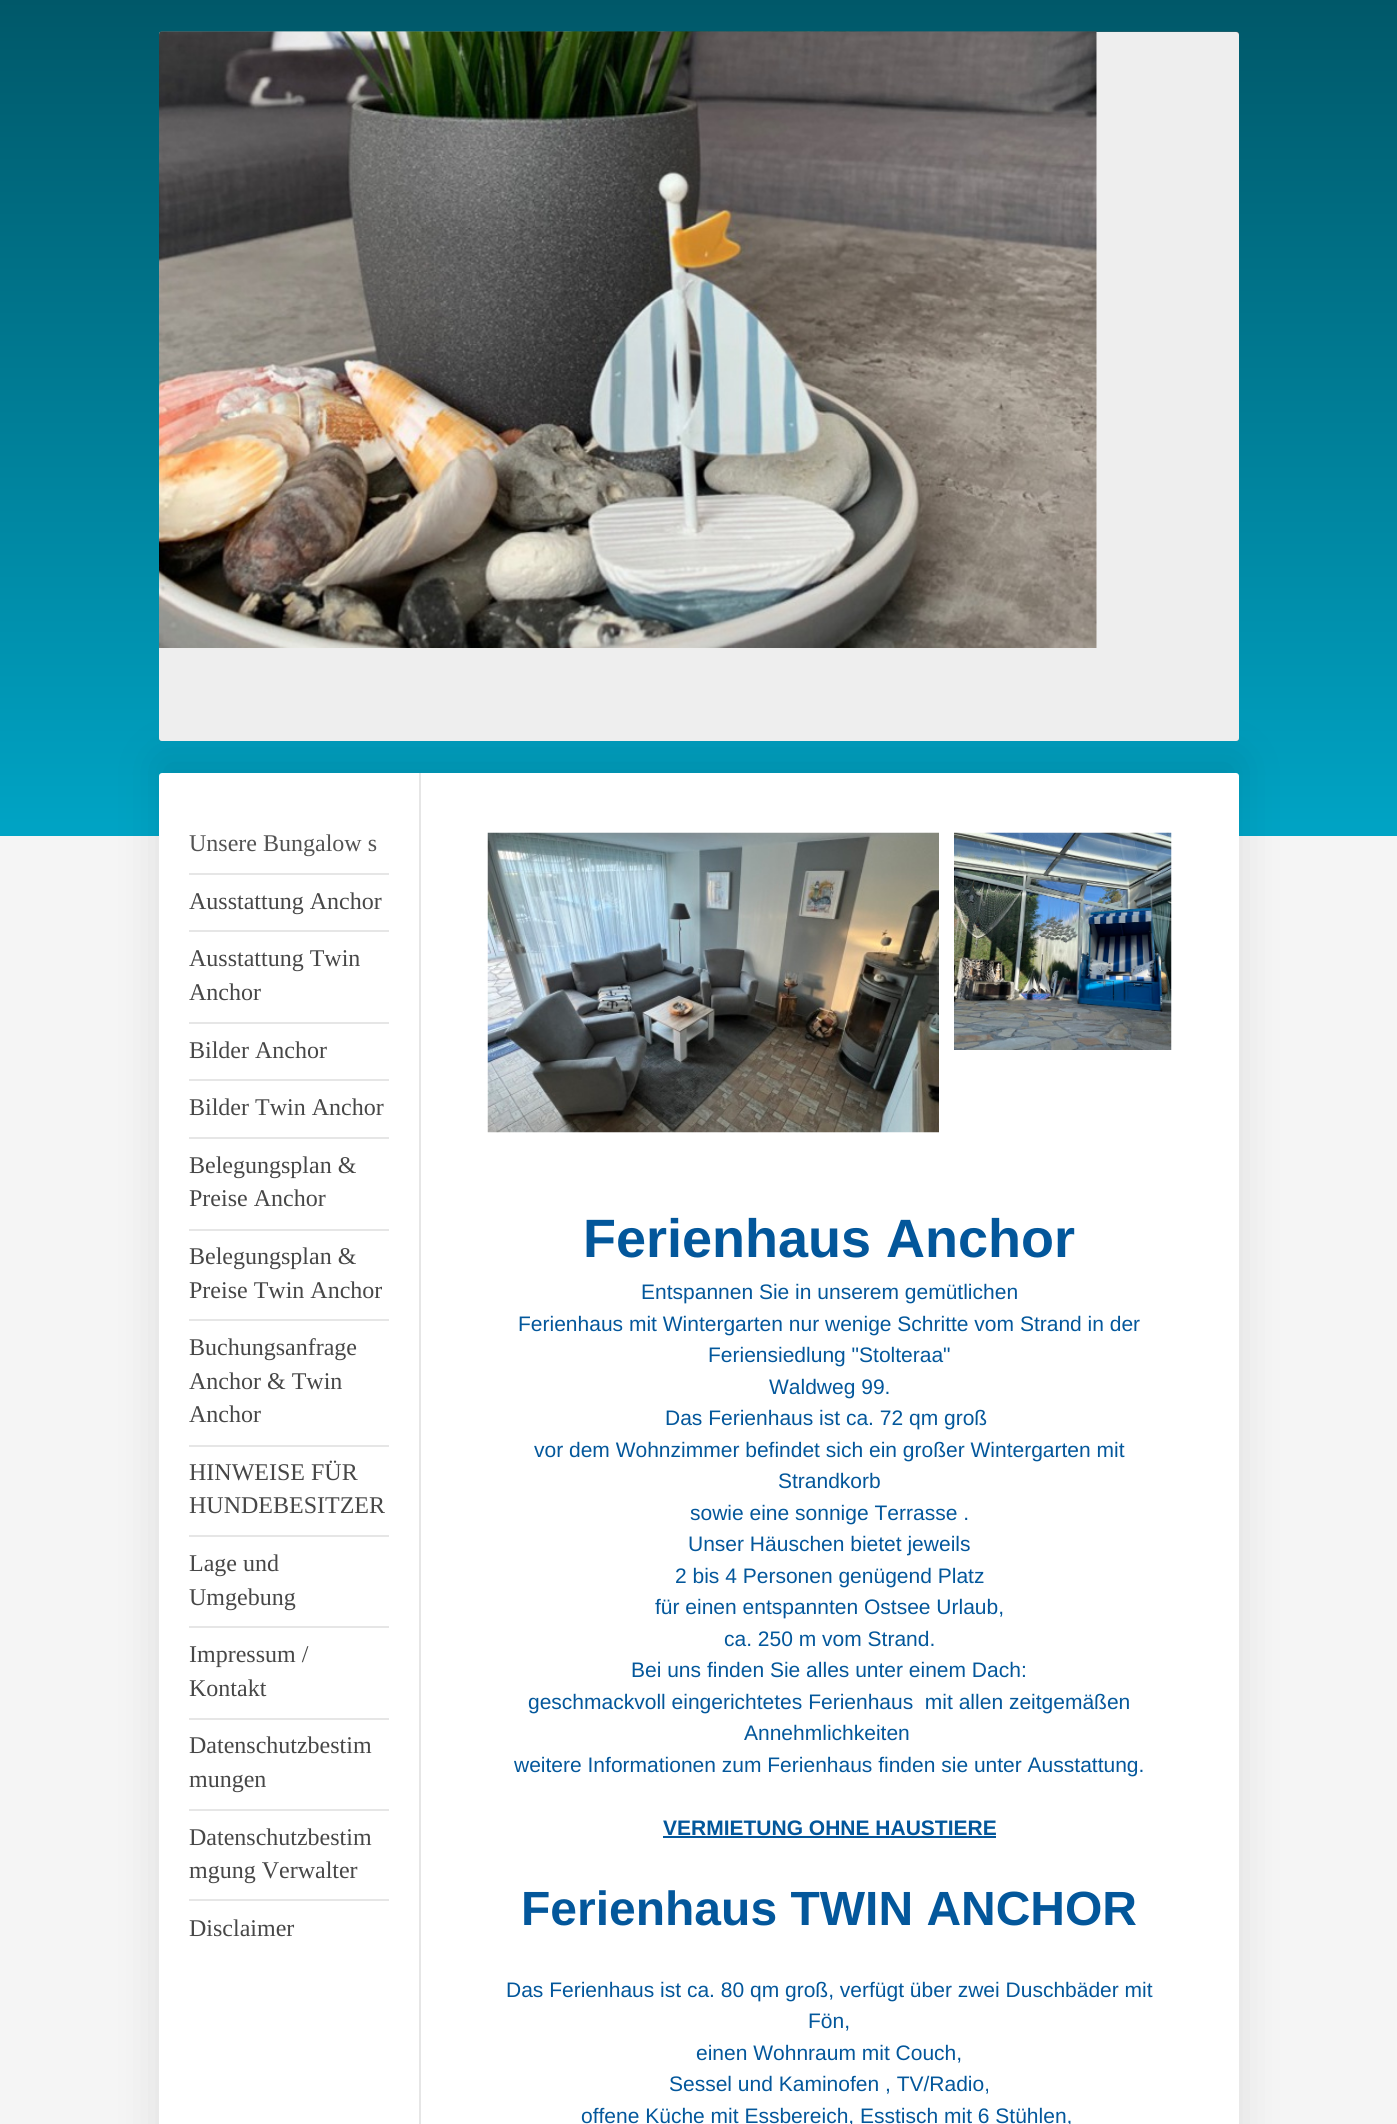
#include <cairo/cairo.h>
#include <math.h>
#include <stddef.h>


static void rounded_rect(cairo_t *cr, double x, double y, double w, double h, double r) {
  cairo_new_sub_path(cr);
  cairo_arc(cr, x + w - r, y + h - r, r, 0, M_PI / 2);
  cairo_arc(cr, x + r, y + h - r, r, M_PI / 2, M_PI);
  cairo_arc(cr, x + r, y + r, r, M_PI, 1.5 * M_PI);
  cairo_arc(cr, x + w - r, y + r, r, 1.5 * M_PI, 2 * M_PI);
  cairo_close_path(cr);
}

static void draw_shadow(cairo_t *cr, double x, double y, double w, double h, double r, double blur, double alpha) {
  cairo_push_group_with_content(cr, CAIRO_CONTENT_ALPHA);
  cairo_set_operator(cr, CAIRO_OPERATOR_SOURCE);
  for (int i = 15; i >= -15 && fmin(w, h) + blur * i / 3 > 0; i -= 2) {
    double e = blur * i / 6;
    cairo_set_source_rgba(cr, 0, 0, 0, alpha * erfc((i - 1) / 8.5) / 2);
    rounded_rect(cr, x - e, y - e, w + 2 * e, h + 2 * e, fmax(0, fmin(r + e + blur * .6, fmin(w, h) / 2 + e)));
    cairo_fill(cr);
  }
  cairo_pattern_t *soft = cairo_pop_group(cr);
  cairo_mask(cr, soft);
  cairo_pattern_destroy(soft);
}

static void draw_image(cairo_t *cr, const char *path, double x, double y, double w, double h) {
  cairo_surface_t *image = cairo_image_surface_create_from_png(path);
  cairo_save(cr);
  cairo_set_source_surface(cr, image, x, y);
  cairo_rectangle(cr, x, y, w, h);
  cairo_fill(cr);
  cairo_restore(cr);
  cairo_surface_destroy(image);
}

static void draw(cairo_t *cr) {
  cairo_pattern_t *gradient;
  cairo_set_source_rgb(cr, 245 / 255.0, 245 / 255.0, 245 / 255.0);
  cairo_paint(cr);
  gradient = cairo_pattern_create_linear(0, 836, 0, 0);
  cairo_pattern_add_color_stop_rgba(gradient, 0, 0, 164 / 255.0, 197 / 255.0, 1);
  cairo_pattern_add_color_stop_rgba(gradient, 1, 0, 88 / 255.0, 105 / 255.0, 1);
  cairo_set_source(cr, gradient);
  cairo_pattern_destroy(gradient);
  cairo_rectangle(cr, 0, 0, 1397, 836);
  cairo_fill(cr);
  draw_image(cr, "images/1.png", 159, 31, 1080, 710);
  cairo_set_source_rgb(cr, 0, 0, 0);
  draw_shadow(cr, 159, 758, 1080, 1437, 3, 22.5, 0.1);
  cairo_set_source_rgb(cr, 238 / 255.0, 238 / 255.0, 238 / 255.0);
  rounded_rect(cr, 159, 32, 1080, 709, 3);
  cairo_fill(cr);
  draw_image(cr, "images/2.png", 159, 31, 938, 617);
  cairo_set_source_rgb(cr, 1, 1, 1);
  rounded_rect(cr, 159, 773, 1080, 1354, 3);
  cairo_fill(cr);
  cairo_set_source_rgb(cr, 230 / 255.0, 230 / 255.0, 230 / 255.0);
  cairo_rectangle(cr, 189, 873, 200, 2);
  cairo_fill(cr);
  cairo_rectangle(cr, 189, 930, 200, 2);
  cairo_fill(cr);
  cairo_rectangle(cr, 189, 1022, 200, 2);
  cairo_fill(cr);
  cairo_rectangle(cr, 189, 1079, 200, 2);
  cairo_fill(cr);
  cairo_rectangle(cr, 189, 1137, 200, 2);
  cairo_fill(cr);
  cairo_rectangle(cr, 189, 1229, 200, 2);
  cairo_fill(cr);
  cairo_rectangle(cr, 189, 1319, 200, 2);
  cairo_fill(cr);
  cairo_rectangle(cr, 189, 1445, 200, 2);
  cairo_fill(cr);
  cairo_rectangle(cr, 189, 1535, 200, 2);
  cairo_fill(cr);
  cairo_rectangle(cr, 189, 1626, 200, 2);
  cairo_fill(cr);
  cairo_rectangle(cr, 189, 1718, 200, 2);
  cairo_fill(cr);
  cairo_rectangle(cr, 189, 1809, 200, 2);
  cairo_fill(cr);
  cairo_rectangle(cr, 189, 1899, 200, 2);
  cairo_fill(cr);
  cairo_rectangle(cr, 419, 773, 2, 1351);
  cairo_fill(cr);
  draw_image(cr, "images/3.png", 487, 832, 452, 301);
  draw_image(cr, "images/4.png", 954, 832, 218, 218);
  cairo_set_source_rgb(cr, 3 / 255.0, 87 / 255.0, 155 / 255.0);
  cairo_rectangle(cr, 663, 1836, 333, 2);
  cairo_fill(cr);
  cairo_select_font_face(cr, "Liberation Serif", CAIRO_FONT_SLANT_NORMAL, CAIRO_FONT_WEIGHT_NORMAL);
  cairo_set_font_size(cr, 24);
  cairo_set_source_rgb(cr, 83 / 255.0, 83 / 255.0, 83 / 255.0);
  cairo_move_to(cr, 189, 851);
  cairo_show_text(cr, "Unsere Bungalow s");
  cairo_set_source_rgb(cr, 71 / 255.0, 71 / 255.0, 71 / 255.0);
  cairo_move_to(cr, 189, 909);
  cairo_show_text(cr, "Ausstattung Anchor");
  cairo_move_to(cr, 189, 966);
  cairo_show_text(cr, "Ausstattung Twin");
  cairo_move_to(cr, 189, 1000);
  cairo_show_text(cr, "Anchor");
  cairo_move_to(cr, 189, 1058);
  cairo_show_text(cr, "Bilder Anchor");
  cairo_move_to(cr, 189, 1115);
  cairo_show_text(cr, "Bilder Twin Anchor");
  cairo_move_to(cr, 189, 1173);
  cairo_show_text(cr, "Belegungsplan &");
  cairo_move_to(cr, 189, 1206);
  cairo_show_text(cr, "Preise Anchor");
  cairo_move_to(cr, 189, 1264);
  cairo_show_text(cr, "Belegungsplan &");
  cairo_move_to(cr, 189, 1298);
  cairo_show_text(cr, "Preise Twin Anchor");
  cairo_move_to(cr, 189, 1355);
  cairo_show_text(cr, "Buchungsanfrage");
  cairo_move_to(cr, 189, 1389);
  cairo_show_text(cr, "Anchor & Twin");
  cairo_move_to(cr, 189, 1422);
  cairo_show_text(cr, "Anchor");
  cairo_move_to(cr, 189, 1480);
  cairo_show_text(cr, "HINWEISE FÜR");
  cairo_move_to(cr, 189, 1513);
  cairo_show_text(cr, "HUNDEBESITZER");
  cairo_move_to(cr, 189, 1571);
  cairo_show_text(cr, "Lage und");
  cairo_move_to(cr, 189, 1605);
  cairo_show_text(cr, "Umgebung");
  cairo_move_to(cr, 189, 1662);
  cairo_show_text(cr, "Impressum /");
  cairo_move_to(cr, 189, 1696);
  cairo_show_text(cr, "Kontakt");
  cairo_move_to(cr, 189, 1753);
  cairo_show_text(cr, "Datenschutzbestim");
  cairo_move_to(cr, 189, 1787);
  cairo_show_text(cr, "mungen");
  cairo_move_to(cr, 189, 1845);
  cairo_show_text(cr, "Datenschutzbestim");
  cairo_move_to(cr, 189, 1878);
  cairo_show_text(cr, "mgung Verwalter");
  cairo_move_to(cr, 189, 1936);
  cairo_show_text(cr, "Disclaimer");
  cairo_select_font_face(cr, "Liberation Sans", CAIRO_FONT_SLANT_NORMAL, CAIRO_FONT_WEIGHT_BOLD);
  cairo_set_font_size(cr, 54);
  cairo_set_source_rgb(cr, 3 / 255.0, 87 / 255.0, 155 / 255.0);
  cairo_move_to(cr, 583, 1257);
  cairo_show_text(cr, "Ferienhaus Anchor");
  cairo_select_font_face(cr, "Liberation Sans", CAIRO_FONT_SLANT_NORMAL, CAIRO_FONT_WEIGHT_NORMAL);
  cairo_set_font_size(cr, 21);
  cairo_move_to(cr, 641, 1299);
  cairo_show_text(cr, "Entspannen Sie in unserem gemütlichen");
  cairo_move_to(cr, 518, 1331);
  cairo_show_text(cr, "Ferienhaus mit Wintergarten nur wenige Schritte vom Strand in der");
  cairo_move_to(cr, 708, 1362);
  cairo_show_text(cr, "Feriensiedlung \"Stolteraa\"");
  cairo_move_to(cr, 769, 1394);
  cairo_show_text(cr, "Waldweg 99.");
  cairo_move_to(cr, 665, 1425);
  cairo_show_text(cr, "Das Ferienhaus ist ca. 72 qm groß");
  cairo_move_to(cr, 534, 1457);
  cairo_show_text(cr, "vor dem Wohnzimmer befindet sich ein großer Wintergarten mit");
  cairo_move_to(cr, 778, 1488);
  cairo_show_text(cr, "Strandkorb");
  cairo_move_to(cr, 690, 1520);
  cairo_show_text(cr, "sowie eine sonnige Terrasse .");
  cairo_move_to(cr, 688, 1551);
  cairo_show_text(cr, "Unser Häuschen bietet jeweils");
  cairo_move_to(cr, 675, 1583);
  cairo_show_text(cr, "2 bis 4 Personen genügend Platz");
  cairo_move_to(cr, 655, 1614);
  cairo_show_text(cr, "für einen entspannten Ostsee Urlaub,");
  cairo_move_to(cr, 724, 1646);
  cairo_show_text(cr, "ca. 250 m vom Strand.");
  cairo_move_to(cr, 631, 1677);
  cairo_show_text(cr, "Bei uns finden Sie alles unter einem Dach:");
  cairo_move_to(cr, 528, 1709);
  cairo_show_text(cr, "geschmackvoll eingerichtetes Ferienhaus  mit allen zeitgemäßen");
  cairo_move_to(cr, 744, 1740);
  cairo_show_text(cr, "Annehmlichkeiten");
  cairo_move_to(cr, 514, 1772);
  cairo_show_text(cr, "weitere Informationen zum Ferienhaus finden sie unter Ausstattung.");
  cairo_select_font_face(cr, "Liberation Sans", CAIRO_FONT_SLANT_NORMAL, CAIRO_FONT_WEIGHT_BOLD);
  cairo_move_to(cr, 663, 1835);
  cairo_show_text(cr, "VERMIETUNG OHNE HAUSTIERE");
  cairo_set_font_size(cr, 48);
  cairo_move_to(cr, 521, 1925);
  cairo_show_text(cr, "Ferienhaus TWIN ANCHOR");
  cairo_select_font_face(cr, "Liberation Sans", CAIRO_FONT_SLANT_NORMAL, CAIRO_FONT_WEIGHT_NORMAL);
  cairo_set_font_size(cr, 21);
  cairo_move_to(cr, 506, 1997);
  cairo_show_text(cr, "Das Ferienhaus ist ca. 80 qm groß, verfügt über zwei Duschbäder mit");
  cairo_move_to(cr, 808, 2028);
  cairo_show_text(cr, "Fön,");
  cairo_move_to(cr, 696, 2060);
  cairo_show_text(cr, "einen Wohnraum mit Couch,");
  cairo_move_to(cr, 669, 2091);
  cairo_show_text(cr, "Sessel und Kaminofen , TV/Radio,");
  cairo_move_to(cr, 581, 2123);
  cairo_show_text(cr, "offene Küche mit Essbereich, Esstisch mit 6 Stühlen,");
}

int main(void) {
  cairo_surface_t *surface = cairo_image_surface_create(CAIRO_FORMAT_RGB24, 1397, 2124);
  cairo_t *cr = cairo_create(surface);
  cairo_font_options_t *options = cairo_font_options_create();
  cairo_font_options_set_hint_metrics(options, CAIRO_HINT_METRICS_OFF);
  cairo_font_options_set_hint_style(options, CAIRO_HINT_STYLE_NONE);
  cairo_set_font_options(cr, options);
  cairo_set_miter_limit(cr, 4);
  draw(cr);
  cairo_surface_write_to_png(surface, "out.png");
  cairo_font_options_destroy(options);
  cairo_destroy(cr);
  cairo_surface_destroy(surface);
  return 0;
}
